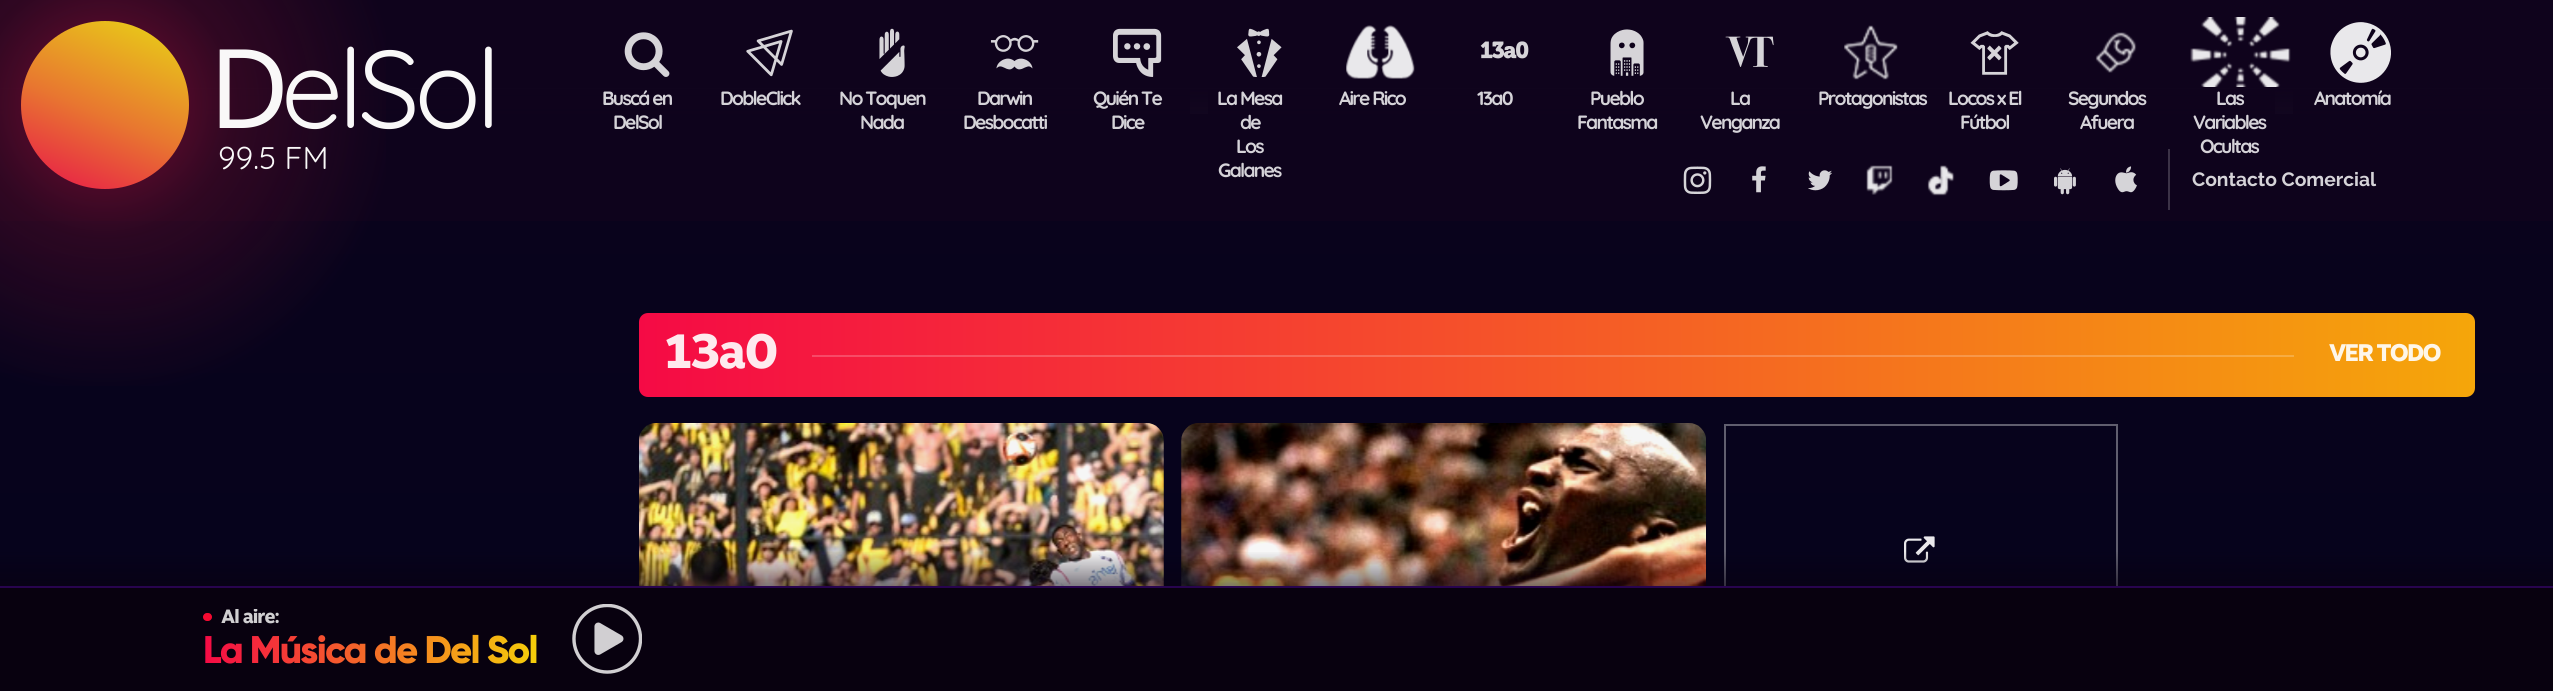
#include <cairo/cairo.h>
#include <math.h>
#include <stddef.h>


static void draw_spaced(cairo_t *cr, double x, double y, const char *s, double letter, double word) {
  cairo_move_to(cr, x, y);
  while (*s) {
    char ch[5] = {0};
    int n = 0;
    do ch[n++] = *s++; while ((*s & 0xC0) == 0x80);
    cairo_show_text(cr, ch);
    cairo_rel_move_to(cr, letter + word * (*ch == ' '), 0);
  }
}

static void rounded_rect(cairo_t *cr, double x, double y, double w, double h, double r) {
  cairo_new_sub_path(cr);
  cairo_arc(cr, x + w - r, y + h - r, r, 0, M_PI / 2);
  cairo_arc(cr, x + r, y + h - r, r, M_PI / 2, M_PI);
  cairo_arc(cr, x + r, y + r, r, M_PI, 1.5 * M_PI);
  cairo_arc(cr, x + w - r, y + r, r, 1.5 * M_PI, 2 * M_PI);
  cairo_close_path(cr);
}

static void draw_image(cairo_t *cr, const char *path, double x, double y, double w, double h) {
  cairo_surface_t *image = cairo_image_surface_create_from_png(path);
  cairo_save(cr);
  cairo_set_source_surface(cr, image, x, y);
  cairo_rectangle(cr, x, y, w, h);
  cairo_fill(cr);
  cairo_restore(cr);
  cairo_surface_destroy(image);
}

static void draw(cairo_t *cr) {
  cairo_pattern_t *gradient;
  cairo_set_source_rgb(cr, 1, 1, 1);
  cairo_paint(cr);
  cairo_set_source_rgb(cr, 15 / 255.0, 3 / 255.0, 28 / 255.0);
  cairo_rectangle(cr, 0, 0, 2553, 88);
  cairo_fill(cr);
  gradient = cairo_pattern_create_linear(1277, -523, 1277, 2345);
  cairo_pattern_add_color_stop_rgba(gradient, 0, 15 / 255.0, 3 / 255.0, 28 / 255.0, 1);
  cairo_pattern_add_color_stop_rgba(gradient, 0.5, 13 / 255.0, 3 / 255.0, 28 / 255.0, 1);
  cairo_pattern_add_color_stop_rgba(gradient, 1, 13 / 255.0, 3 / 255.0, 28 / 255.0, 1);
  cairo_set_source(cr, gradient);
  cairo_pattern_destroy(gradient);
  cairo_rectangle(cr, 0, 89, 2553, 132);
  cairo_fill(cr);
  cairo_set_source_rgb(cr, 38 / 255.0, 28 / 255.0, 50 / 255.0);
  cairo_rectangle(cr, 1190, 89, 18, 25);
  cairo_fill(cr);
  cairo_rectangle(cr, 2275, 89, 18, 25);
  cairo_fill(cr);
  gradient = cairo_pattern_create_linear(1277, 298, 1277, 88);
  cairo_pattern_add_color_stop_rgba(gradient, 0, 15 / 255.0, 3 / 255.0, 28 / 255.0, 0);
  cairo_pattern_add_color_stop_rgba(gradient, 1, 15 / 255.0, 3 / 255.0, 28 / 255.0, 1);
  cairo_set_source(cr, gradient);
  cairo_pattern_destroy(gradient);
  cairo_rectangle(cr, 0, 88, 2553, 26);
  cairo_fill(cr);
  gradient = cairo_pattern_create_linear(1277, -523, 1277, 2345);
  cairo_pattern_add_color_stop_rgba(gradient, 0, 15 / 255.0, 3 / 255.0, 28 / 255.0, 1);
  cairo_pattern_add_color_stop_rgba(gradient, 0.5, 3 / 255.0, 3 / 255.0, 28 / 255.0, 1);
  cairo_pattern_add_color_stop_rgba(gradient, 1, 3 / 255.0, 3 / 255.0, 28 / 255.0, 1);
  cairo_set_source(cr, gradient);
  cairo_pattern_destroy(gradient);
  cairo_rectangle(cr, 0, 221, 2553, 365);
  cairo_fill(cr);
  gradient = cairo_pattern_create_radial(105, 105, 0, 105, 105, 292);
  cairo_pattern_add_color_stop_rgba(gradient, 0, 232 / 255.0, 21 / 255.0, 74 / 255.0, 0.56);
  cairo_pattern_add_color_stop_rgba(gradient, 0.45, 122 / 255.0, 17 / 255.0, 47 / 255.0, 0.31);
  cairo_pattern_add_color_stop_rgba(gradient, 1, 122 / 255.0, 17 / 255.0, 47 / 255.0, 0);
  cairo_set_source(cr, gradient);
  cairo_pattern_destroy(gradient);
  cairo_rectangle(cr, 0, 0, 386, 386);
  cairo_fill(cr);
  gradient = cairo_pattern_create_linear(62, 206, 148, 3.6);
  cairo_pattern_add_color_stop_rgba(gradient, 0, 232 / 255.0, 21 / 255.0, 74 / 255.0, 1);
  cairo_pattern_add_color_stop_rgba(gradient, 0.45, 232 / 255.0, 118 / 255.0, 48 / 255.0, 1);
  cairo_pattern_add_color_stop_rgba(gradient, 1, 232 / 255.0, 214 / 255.0, 21 / 255.0, 1);
  cairo_set_source(cr, gradient);
  cairo_pattern_destroy(gradient);
  cairo_arc(cr, 105, 105, 84, 0, 2 * M_PI);
  cairo_fill(cr);
  draw_image(cr, "images/1.png", 624, 32, 46, 45);
  draw_image(cr, "images/2.png", 746, 29, 47, 48);
  draw_image(cr, "images/3.png", 879, 28, 26, 49);
  draw_image(cr, "images/4.png", 990, 35, 49, 35);
  draw_image(cr, "images/5.png", 1113, 28, 49, 49);
  draw_image(cr, "images/6.png", 1237, 28, 45, 49);
  draw_image(cr, "images/7.png", 1346, 25, 69, 54);
  draw_image(cr, "images/8.png", 1480, 41, 49, 18);
  draw_image(cr, "images/9.png", 1610, 29, 34, 47);
  draw_image(cr, "images/10.png", 1725, 36, 49, 31);
  draw_image(cr, "images/11.png", 1844, 25, 54, 55);
  draw_image(cr, "images/12.png", 1970, 31, 49, 44);
  draw_image(cr, "images/13.png", 2095, 32, 42, 41);
  draw_image(cr, "images/14.png", 2190, 17, 101, 70);
  draw_image(cr, "images/15.png", 2330, 22, 61, 61);
  draw_image(cr, "images/16.png", 1683, 166, 29, 28);
  draw_image(cr, "images/17.png", 1752, 166, 14, 27);
  draw_image(cr, "images/18.png", 1808, 170, 24, 21);
  draw_image(cr, "images/19.png", 1866, 165, 27, 30);
  draw_image(cr, "images/20.png", 1927, 165, 28, 31);
  draw_image(cr, "images/21.png", 1989, 170, 29, 21);
  draw_image(cr, "images/22.png", 2054, 168, 22, 27);
  draw_image(cr, "images/23.png", 2115, 166, 22, 27);
  cairo_set_source_rgb(cr, 60 / 255.0, 51 / 255.0, 71 / 255.0);
  cairo_rectangle(cr, 2168, 149, 2, 61);
  cairo_fill(cr);
  gradient = cairo_pattern_create_linear(639, 355, 2475, 355);
  cairo_pattern_add_color_stop_rgba(gradient, 0, 245 / 255.0, 10 / 255.0, 69 / 255.0, 1);
  cairo_pattern_add_color_stop_rgba(gradient, 1, 245 / 255.0, 166 / 255.0, 10 / 255.0, 1);
  cairo_set_source(cr, gradient);
  cairo_pattern_destroy(gradient);
  rounded_rect(cr, 639, 313, 1836, 84, 9);
  cairo_fill(cr);
  gradient = cairo_pattern_create_linear(639, 355, 2475, 355);
  cairo_pattern_add_color_stop_rgba(gradient, 0, 247 / 255.0, 61 / 255.0, 108 / 255.0, 1);
  cairo_pattern_add_color_stop_rgba(gradient, 1, 247 / 255.0, 185 / 255.0, 61 / 255.0, 1);
  cairo_set_source(cr, gradient);
  cairo_pattern_destroy(gradient);
  cairo_rectangle(cr, 812, 355, 1482, 2);
  cairo_fill(cr);
  draw_image(cr, "images/24.png", 639, 423, 525, 163);
  gradient = cairo_pattern_create_linear(901, 423, 901, 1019);
  cairo_pattern_add_color_stop_rgba(gradient, 0, 0, 0, 0, 0.04);
  cairo_pattern_add_color_stop_rgba(gradient, 1, 0, 0, 0, 0);
  cairo_set_source(cr, gradient);
  cairo_pattern_destroy(gradient);
  cairo_rectangle(cr, 639, 424, 525, 162);
  cairo_fill(cr);
  draw_image(cr, "images/25.png", 1181, 423, 525, 163);
  gradient = cairo_pattern_create_linear(1444, 423, 1444, 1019);
  cairo_pattern_add_color_stop_rgba(gradient, 0, 0, 0, 0, 0.04);
  cairo_pattern_add_color_stop_rgba(gradient, 1, 0, 0, 0, 0);
  cairo_set_source(cr, gradient);
  cairo_pattern_destroy(gradient);
  cairo_rectangle(cr, 1181, 424, 525, 162);
  cairo_fill(cr);
  cairo_rectangle(cr, 1725, 425, 392, 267);
  cairo_set_source_rgb(cr, 96 / 255.0, 94 / 255.0, 110 / 255.0);
  cairo_stroke(cr);
  draw_image(cr, "images/26.png", 1904, 536, 31, 27);
  cairo_set_source_rgb(cr, 8 / 255.0, 1 / 255.0, 15 / 255.0);
  cairo_rectangle(cr, 0, 588, 2553, 103);
  cairo_fill(cr);
  gradient = cairo_pattern_create_linear(1277, 551, 1277, 586);
  cairo_pattern_add_color_stop_rgba(gradient, 0, 8 / 255.0, 1 / 255.0, 15 / 255.0, 0);
  cairo_pattern_add_color_stop_rgba(gradient, 1, 8 / 255.0, 1 / 255.0, 15 / 255.0, 0.51);
  cairo_set_source(cr, gradient);
  cairo_pattern_destroy(gradient);
  cairo_rectangle(cr, 0, 552, 2553, 34);
  cairo_fill(cr);
  cairo_set_source_rgb(cr, 40 / 255.0, 4 / 255.0, 79 / 255.0);
  cairo_rectangle(cr, 0, 586, 2553, 2);
  cairo_fill(cr);
  cairo_set_source_rgb(cr, 245 / 255.0, 10 / 255.0, 49 / 255.0);
  rounded_rect(cr, 203, 613, 9, 8, 4);
  cairo_fill(cr);
  draw_image(cr, "images/27.png", 572, 604, 70, 70);
  cairo_select_font_face(cr, "Noto Sans", CAIRO_FONT_SLANT_NORMAL, CAIRO_FONT_WEIGHT_NORMAL);
  cairo_set_font_size(cr, 110);
  cairo_set_source_rgb(cr, 249 / 255.0, 248 / 255.0, 248 / 255.0);
  draw_spaced(cr, 209, 128, "D", -5.25, 0);
  cairo_select_font_face(cr, "Quicksand", CAIRO_FONT_SLANT_NORMAL, CAIRO_FONT_WEIGHT_NORMAL);
  draw_spaced(cr, 281, 128, "elSol", -5.25, 0);
  cairo_set_font_size(cr, 31.5);
  cairo_move_to(cr, 218, 169);
  cairo_show_text(cr, "99.5 FM");
  cairo_select_font_face(cr, "Quicksand", CAIRO_FONT_SLANT_NORMAL, CAIRO_FONT_WEIGHT_BOLD);
  cairo_set_font_size(cr, 19.25);
  cairo_set_source_rgb(cr, 213 / 255.0, 211 / 255.0, 216 / 255.0);
  draw_spaced(cr, 602, 105, "Buscá en", -1.75, 0);
  draw_spaced(cr, 613, 129, "DelSol", -1.75, 0);
  draw_spaced(cr, 720, 105, "DobleClick", -1.75, 0);
  draw_spaced(cr, 839, 105, "No Toquen", -1.75, 0);
  draw_spaced(cr, 860, 129, "Nada", -1.75, 0);
  draw_spaced(cr, 977, 105, "Darwin", -1.75, 0);
  draw_spaced(cr, 963, 129, "Desbocatti", -1.75, 0);
  draw_spaced(cr, 1093, 105, "Quién Te", -1.75, 0);
  draw_spaced(cr, 1111, 129, "Dice", -1.75, 0);
  draw_spaced(cr, 1217, 105, "La Mesa", -1.75, 0);
  draw_spaced(cr, 1240, 129, "de", -1.75, 0);
  draw_spaced(cr, 1236, 153, "Los", -1.75, 0);
  draw_spaced(cr, 1218, 177, "Galanes", -1.75, 0);
  draw_spaced(cr, 1339, 105, "Aire Rico", -1.75, 0);
  draw_spaced(cr, 1477, 105, "13a0", -1.75, 0);
  draw_spaced(cr, 1590, 105, "Pueblo", -1.75, 0);
  draw_spaced(cr, 1577, 129, "Fantasma", -1.75, 0);
  draw_spaced(cr, 1730, 105, "La", -1.75, 0);
  draw_spaced(cr, 1700, 129, "Venganza", -1.75, 0);
  draw_spaced(cr, 1818, 105, "Protagonistas", -1.75, 0);
  draw_spaced(cr, 1948, 105, "Locos x El", -1.75, 0);
  draw_spaced(cr, 1960, 129, "Fútbol", -1.75, 0);
  draw_spaced(cr, 2068, 105, "Segundos", -1.75, 0);
  draw_spaced(cr, 2080, 129, "Afuera", -1.75, 0);
  draw_spaced(cr, 2216, 105, "Las", -1.75, 0);
  draw_spaced(cr, 2193, 129, "Variables", -1.75, 0);
  draw_spaced(cr, 2200, 153, "Ocultas", -1.75, 0);
  draw_spaced(cr, 2314, 105, "Anatomía", -1.75, 0);
  cairo_select_font_face(cr, "Raleway", CAIRO_FONT_SLANT_NORMAL, CAIRO_FONT_WEIGHT_BOLD);
  cairo_move_to(cr, 2192, 186);
  cairo_show_text(cr, "Contacto Comercial");
  cairo_select_font_face(cr, "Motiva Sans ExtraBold", CAIRO_FONT_SLANT_NORMAL, CAIRO_FONT_WEIGHT_NORMAL);
  cairo_set_font_size(cr, 48);
  cairo_set_source_rgb(cr, 254 / 255.0, 234 / 255.0, 238 / 255.0);
  draw_spaced(cr, 664, 368, "13a0", -1.75, 0);
  cairo_set_font_size(cr, 24);
  cairo_set_source_rgb(cr, 254 / 255.0, 246 / 255.0, 233 / 255.0);
  draw_spaced(cr, 2329, 361, "VER TODO", -1.75, 0);
  cairo_save(cr);
  cairo_rectangle(cr, 203, 609, 334, 19);
  cairo_clip(cr);
  cairo_set_font_size(cr, 19.25);
  cairo_set_source_rgb(cr, 208 / 255.0, 207 / 255.0, 209 / 255.0);
  draw_spaced(cr, 221, 623, "Al aire:", -1, 0);
  cairo_restore(cr);
  cairo_select_font_face(cr, "Gilroy ExtraBold", CAIRO_FONT_SLANT_NORMAL, CAIRO_FONT_WEIGHT_NORMAL);
  cairo_set_font_size(cr, 38.5);
  gradient = cairo_pattern_create_linear(203, 651, 537, 651);
  cairo_pattern_add_color_stop_rgba(gradient, 0, 245 / 255.0, 10 / 255.0, 69 / 255.0, 1);
  cairo_pattern_add_color_stop_rgba(gradient, 1, 245 / 255.0, 206 / 255.0, 10 / 255.0, 1);
  cairo_set_source(cr, gradient);
  cairo_pattern_destroy(gradient);
  draw_spaced(cr, 203, 663, "La Música de Del Sol", -1.75, 0);
}

int main(void) {
  cairo_surface_t *surface = cairo_image_surface_create(CAIRO_FORMAT_RGB24, 2553, 691);
  cairo_t *cr = cairo_create(surface);
  cairo_font_options_t *options = cairo_font_options_create();
  cairo_font_options_set_hint_metrics(options, CAIRO_HINT_METRICS_OFF);
  cairo_font_options_set_hint_style(options, CAIRO_HINT_STYLE_NONE);
  cairo_set_font_options(cr, options);
  cairo_set_miter_limit(cr, 4);
  draw(cr);
  cairo_surface_write_to_png(surface, "out.png");
  cairo_font_options_destroy(options);
  cairo_destroy(cr);
  cairo_surface_destroy(surface);
  return 0;
}
